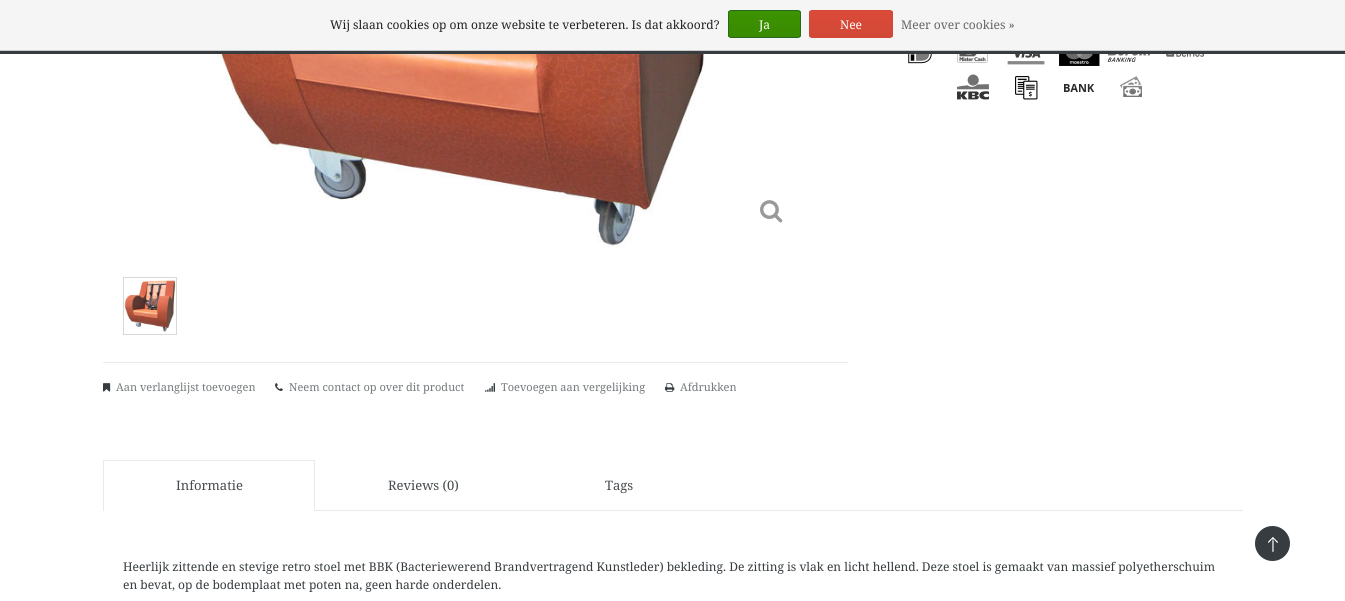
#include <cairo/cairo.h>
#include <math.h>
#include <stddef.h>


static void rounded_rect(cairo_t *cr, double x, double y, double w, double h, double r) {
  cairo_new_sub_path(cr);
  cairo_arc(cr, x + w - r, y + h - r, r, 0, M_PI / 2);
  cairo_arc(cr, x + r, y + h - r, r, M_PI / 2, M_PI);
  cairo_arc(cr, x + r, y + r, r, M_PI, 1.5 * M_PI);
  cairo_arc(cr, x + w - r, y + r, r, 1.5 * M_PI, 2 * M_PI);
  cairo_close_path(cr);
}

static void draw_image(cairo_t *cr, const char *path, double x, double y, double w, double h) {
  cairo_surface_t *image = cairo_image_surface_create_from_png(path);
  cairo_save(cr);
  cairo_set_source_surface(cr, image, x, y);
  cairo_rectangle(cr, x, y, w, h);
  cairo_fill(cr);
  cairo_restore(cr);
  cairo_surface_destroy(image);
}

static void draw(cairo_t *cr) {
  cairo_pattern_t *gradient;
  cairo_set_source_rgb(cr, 1, 1, 1);
  cairo_paint(cr);
  cairo_set_source_rgb(cr, 245 / 255.0, 245 / 255.0, 245 / 255.0);
  cairo_rectangle(cr, 0, 0, 1345, 50);
  cairo_fill(cr);
  cairo_set_source_rgb(cr, 204 / 255.0, 204 / 255.0, 204 / 255.0);
  cairo_rectangle(cr, 0, 50, 1345, 1);
  cairo_fill(cr);
  cairo_save(cr);
  rounded_rect(cr, 728, 10, 73, 28, 3);
  cairo_clip(cr);
  gradient = cairo_pattern_create_linear(765, 11, 765, 37);
  cairo_pattern_add_color_stop_rgba(gradient, 0, 60 / 255.0, 147 / 255.0, 0, 1);
  cairo_pattern_add_color_stop_rgba(gradient, 1, 57 / 255.0, 138 / 255.0, 0, 1);
  cairo_set_source(cr, gradient);
  cairo_pattern_destroy(gradient);
  cairo_rectangle(cr, 728, 11, 73, 26);
  cairo_fill(cr);
  cairo_restore(cr);
  rounded_rect(cr, 728.5, 10.5, 72, 27, 2.5);
  cairo_set_source_rgb(cr, 41 / 255.0, 105 / 255.0, 29 / 255.0);
  cairo_set_line_width(cr, 1);
  cairo_stroke(cr);
  cairo_save(cr);
  rounded_rect(cr, 809, 10, 84, 28, 3);
  cairo_clip(cr);
  gradient = cairo_pattern_create_linear(851, 11, 851, 37);
  cairo_pattern_add_color_stop_rgba(gradient, 0, 220 / 255.0, 74 / 255.0, 56 / 255.0, 1);
  cairo_pattern_add_color_stop_rgba(gradient, 1, 209 / 255.0, 72 / 255.0, 54 / 255.0, 1);
  cairo_set_source(cr, gradient);
  cairo_pattern_destroy(gradient);
  cairo_rectangle(cr, 809, 11, 84, 26);
  cairo_fill(cr);
  cairo_restore(cr);
  rounded_rect(cr, 809.5, 10.5, 83, 27, 2.5);
  cairo_set_source_rgb(cr, 209 / 255.0, 72 / 255.0, 54 / 255.0);
  cairo_stroke(cr);
  cairo_set_source_rgb(cr, 54 / 255.0, 60 / 255.0, 63 / 255.0);
  cairo_rectangle(cr, 0, 51, 1345, 3);
  cairo_fill(cr);
  draw_image(cr, "images/1.png", 908, 54, 24, 11);
  draw_image(cr, "images/2.png", 957, 54, 31, 9);
  draw_image(cr, "images/3.png", 1007, 54, 38, 11);
  draw_image(cr, "images/4.png", 1059, 54, 41, 12);
  draw_image(cr, "images/5.png", 1107, 54, 44, 8);
  draw_image(cr, "images/6.png", 1166, 54, 38, 3);
  draw_image(cr, "images/7.png", 957, 74, 32, 26);
  draw_image(cr, "images/8.png", 1015, 76, 23, 24);
  draw_image(cr, "images/9.png", 1064, 84, 31, 8);
  draw_image(cr, "images/10.png", 1120, 76, 22, 21);
  draw_image(cr, "images/11.png", 203, 54, 506, 194);
  draw_image(cr, "images/12.png", 760, 200, 23, 23);
  cairo_rectangle(cr, 123.5, 277.5, 53, 57);
  cairo_set_source_rgb(cr, 216 / 255.0, 216 / 255.0, 216 / 255.0);
  cairo_stroke(cr);
  draw_image(cr, "images/13.png", 124, 278, 52, 56);
  cairo_set_source_rgb(cr, 234 / 255.0, 234 / 255.0, 234 / 255.0);
  cairo_rectangle(cr, 103, 362, 745, 1);
  cairo_fill(cr);
  draw_image(cr, "images/14.png", 103, 383, 8, 9);
  draw_image(cr, "images/15.png", 275, 383, 8, 8);
  draw_image(cr, "images/16.png", 485, 383, 10, 9);
  draw_image(cr, "images/17.png", 665, 383, 10, 9);
  cairo_rectangle(cr, 315, 510, 928, 1);
  cairo_fill(cr);
  cairo_rectangle(cr, 103, 460, 212, 1);
  cairo_fill(cr);
  cairo_rectangle(cr, 314, 460, 1, 51);
  cairo_fill(cr);
  cairo_rectangle(cr, 103, 460, 1, 51);
  cairo_fill(cr);
  cairo_set_source_rgb(cr, 54 / 255.0, 60 / 255.0, 63 / 255.0);
  cairo_arc(cr, 1272.5, 543.5, 17.5, 0, 2 * M_PI);
  cairo_fill(cr);
  draw_image(cr, "images/18.png", 1268, 537, 10, 15);
  cairo_select_font_face(cr, "Noto Serif", CAIRO_FONT_SLANT_NORMAL, CAIRO_FONT_WEIGHT_NORMAL);
  cairo_set_font_size(cr, 12);
  cairo_set_source_rgb(cr, 34 / 255.0, 34 / 255.0, 34 / 255.0);
  cairo_move_to(cr, 330, 29);
  cairo_show_text(cr, "Wij slaan cookies op om onze website te verbeteren. Is dat akkoord?");
  cairo_set_source_rgb(cr, 1, 1, 1);
  cairo_move_to(cr, 759, 29);
  cairo_show_text(cr, "Ja");
  cairo_move_to(cr, 840, 29);
  cairo_show_text(cr, "Nee");
  cairo_set_source_rgb(cr, 102 / 255.0, 102 / 255.0, 102 / 255.0);
  cairo_move_to(cr, 901, 29);
  cairo_show_text(cr, "Meer over cookies »");
  cairo_set_font_size(cr, 11);
  cairo_set_source_rgb(cr, 117 / 255.0, 122 / 255.0, 124 / 255.0);
  cairo_move_to(cr, 116, 391);
  cairo_show_text(cr, "Aan verlanglijst toevoegen");
  cairo_move_to(cr, 289, 391);
  cairo_show_text(cr, "Neem contact op over dit product");
  cairo_move_to(cr, 501, 391);
  cairo_show_text(cr, "Toevoegen aan vergelijking");
  cairo_move_to(cr, 680, 391);
  cairo_show_text(cr, "Afdrukken");
  cairo_set_font_size(cr, 13);
  cairo_set_source_rgb(cr, 70 / 255.0, 75 / 255.0, 78 / 255.0);
  cairo_move_to(cr, 176, 490);
  cairo_show_text(cr, "Informatie");
  cairo_move_to(cr, 388, 490);
  cairo_show_text(cr, "Reviews (0)");
  cairo_move_to(cr, 605, 490);
  cairo_show_text(cr, "Tags");
  cairo_set_font_size(cr, 12);
  cairo_set_source_rgb(cr, 54 / 255.0, 60 / 255.0, 63 / 255.0);
  cairo_move_to(cr, 123, 571);
  cairo_show_text(cr, "Heerlijk zittende en stevige retro stoel met BBK (Bacteriewerend Brandvertragend Kunstleder) bekleding. De zitting is vlak en licht hellend. Deze stoel is gemaakt van massief polyetherschuim");
  cairo_move_to(cr, 123, 589);
  cairo_show_text(cr, "en bevat, op de bodemplaat met poten na, geen harde onderdelen.");
}

int main(void) {
  cairo_surface_t *surface = cairo_image_surface_create(CAIRO_FORMAT_RGB24, 1345, 601);
  cairo_t *cr = cairo_create(surface);
  cairo_font_options_t *options = cairo_font_options_create();
  cairo_font_options_set_hint_metrics(options, CAIRO_HINT_METRICS_OFF);
  cairo_font_options_set_hint_style(options, CAIRO_HINT_STYLE_NONE);
  cairo_set_font_options(cr, options);
  cairo_set_miter_limit(cr, 4);
  draw(cr);
  cairo_surface_write_to_png(surface, "out.png");
  cairo_font_options_destroy(options);
  cairo_destroy(cr);
  cairo_surface_destroy(surface);
  return 0;
}
